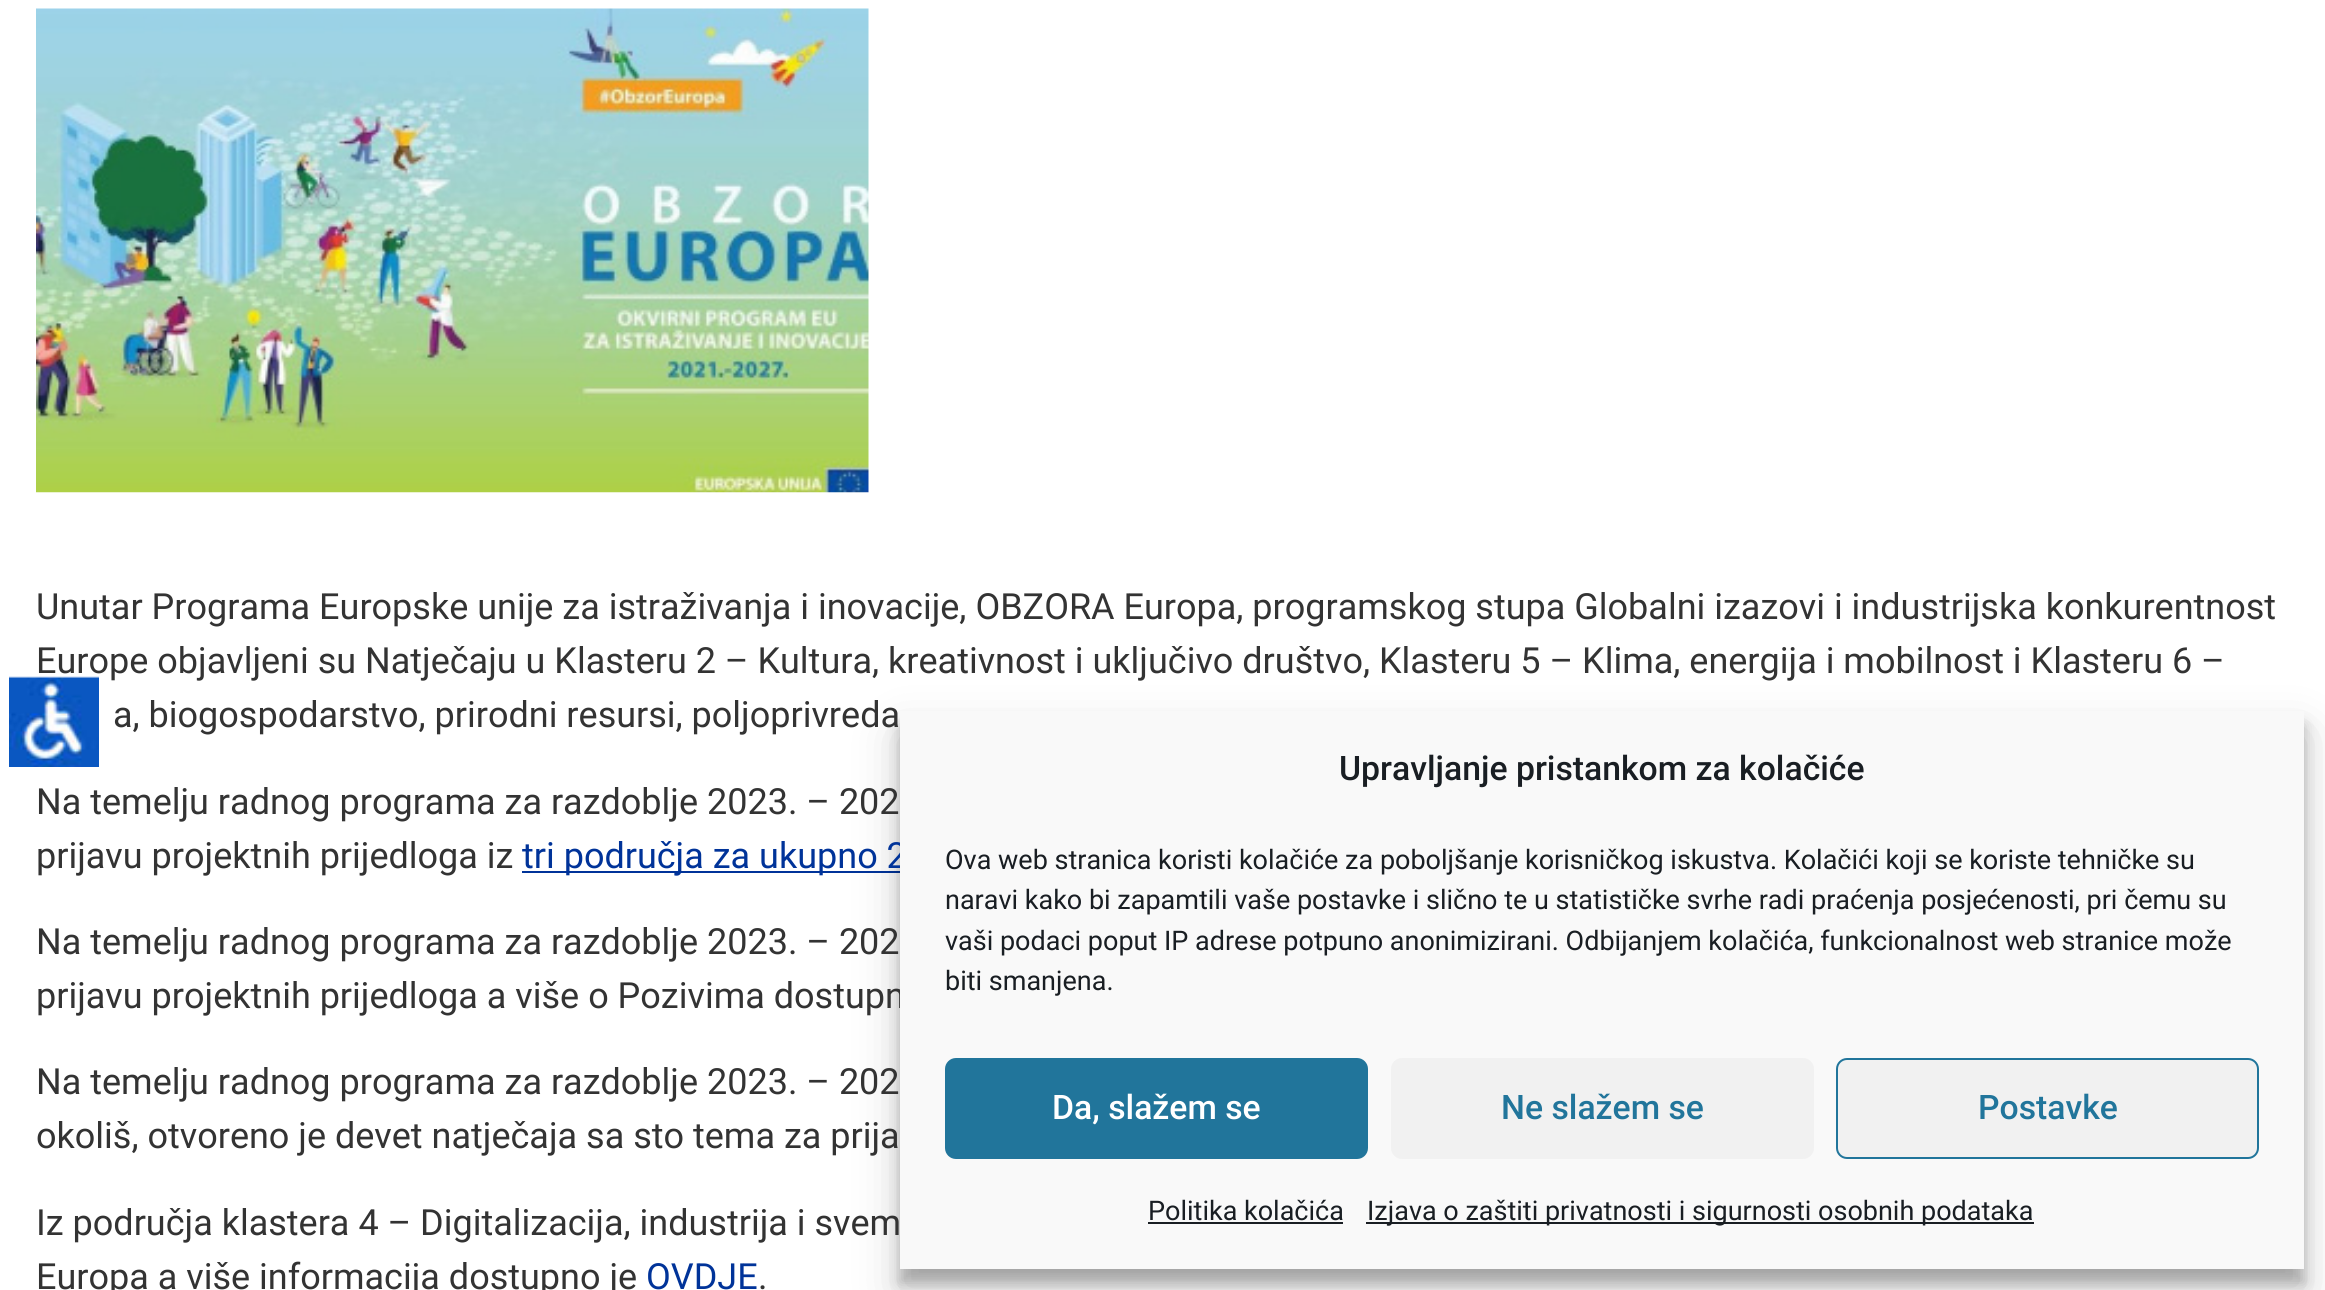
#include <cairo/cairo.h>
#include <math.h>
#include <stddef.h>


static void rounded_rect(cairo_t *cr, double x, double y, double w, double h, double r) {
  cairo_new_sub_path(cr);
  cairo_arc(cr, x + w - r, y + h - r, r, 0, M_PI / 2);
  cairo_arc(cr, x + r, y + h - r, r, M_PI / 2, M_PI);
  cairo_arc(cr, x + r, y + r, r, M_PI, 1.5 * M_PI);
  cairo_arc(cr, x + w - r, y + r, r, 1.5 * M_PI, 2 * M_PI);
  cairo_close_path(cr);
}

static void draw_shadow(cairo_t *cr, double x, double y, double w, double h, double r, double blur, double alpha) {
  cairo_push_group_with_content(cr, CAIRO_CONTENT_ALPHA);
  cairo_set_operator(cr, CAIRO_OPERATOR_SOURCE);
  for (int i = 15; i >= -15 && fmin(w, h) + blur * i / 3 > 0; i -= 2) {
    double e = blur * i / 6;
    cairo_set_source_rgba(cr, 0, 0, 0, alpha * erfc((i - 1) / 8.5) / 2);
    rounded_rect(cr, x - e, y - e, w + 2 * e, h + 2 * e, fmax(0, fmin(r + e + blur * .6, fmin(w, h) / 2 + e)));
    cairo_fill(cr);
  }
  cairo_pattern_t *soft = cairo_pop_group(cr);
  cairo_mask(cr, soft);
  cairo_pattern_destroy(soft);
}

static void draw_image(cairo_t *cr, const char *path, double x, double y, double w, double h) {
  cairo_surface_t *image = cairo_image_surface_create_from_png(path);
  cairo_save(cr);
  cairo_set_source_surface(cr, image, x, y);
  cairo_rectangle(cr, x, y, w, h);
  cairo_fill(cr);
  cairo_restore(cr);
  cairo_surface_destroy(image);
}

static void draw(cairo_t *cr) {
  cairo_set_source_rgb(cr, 1, 1, 1);
  cairo_paint(cr);
  draw_image(cr, "images/1.png", 36, 8, 833, 485);
  cairo_set_source_rgb(cr, 0, 51 / 255.0, 153 / 255.0);
  cairo_rectangle(cr, 522, 871, 378, 2);
  cairo_fill(cr);
  cairo_set_source_rgb(cr, 0, 0, 0);
  draw_shadow(cr, 900, 725, 1404, 558, 0, 7, 0.23);
  draw_shadow(cr, 900, 734, 1404, 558, 0, 22.5, 0.19);
  cairo_select_font_face(cr, "Roboto", CAIRO_FONT_SLANT_NORMAL, CAIRO_FONT_WEIGHT_NORMAL);
  cairo_set_font_size(cr, 36);
  cairo_set_source_rgb(cr, 51 / 255.0, 51 / 255.0, 51 / 255.0);
  cairo_move_to(cr, 36, 619);
  cairo_show_text(cr, "Unutar Programa Europske unije za istraživanja i inovacije, OBZORA Europa, programskog stupa Globalni izazovi i industrijska konkurentnost");
  cairo_move_to(cr, 36, 673);
  cairo_show_text(cr, "Europe objavljeni su Natječaju u Klasteru 2 – Kultura, kreativnost i uključivo društvo, Klasteru 5 – Klima, energija i mobilnost i Klasteru 6 –");
  cairo_move_to(cr, 113, 727);
  cairo_show_text(cr, "a, biogospodarstvo, prirodni resursi, poljoprivreda");
  cairo_move_to(cr, 36, 814);
  cairo_show_text(cr, "Na temelju radnog programa za razdoblje 2023. – 202");
  cairo_move_to(cr, 36, 868);
  cairo_show_text(cr, "prijavu projektnih prijedloga iz");
  cairo_set_source_rgb(cr, 0, 51 / 255.0, 153 / 255.0);
  cairo_move_to(cr, 522, 868);
  cairo_show_text(cr, "tri područja za ukupno 2");
  cairo_set_source_rgb(cr, 51 / 255.0, 51 / 255.0, 51 / 255.0);
  cairo_move_to(cr, 36, 954);
  cairo_show_text(cr, "Na temelju radnog programa za razdoblje 2023. – 202");
  cairo_move_to(cr, 36, 1008);
  cairo_show_text(cr, "prijavu projektnih prijedloga a više o Pozivima dostupn");
  cairo_move_to(cr, 36, 1094);
  cairo_show_text(cr, "Na temelju radnog programa za razdoblje 2023. – 202");
  cairo_move_to(cr, 36, 1148);
  cairo_show_text(cr, "okoliš, otvoreno je devet natječaja sa sto tema za prija");
  cairo_move_to(cr, 36, 1235);
  cairo_show_text(cr, "Iz područja klastera 4 – Digitalizacija, industrija i svem");
  cairo_move_to(cr, 36, 1289);
  cairo_show_text(cr, "Europa a više informacija dostupno je");
  cairo_set_source_rgb(cr, 0, 51 / 255.0, 153 / 255.0);
  cairo_move_to(cr, 646, 1289);
  cairo_show_text(cr, "OVDJE");
  cairo_set_source_rgb(cr, 51 / 255.0, 51 / 255.0, 51 / 255.0);
  cairo_move_to(cr, 758, 1289);
  cairo_show_text(cr, ".");
  draw_image(cr, "images/2.png", 9, 676, 90, 91);
  cairo_set_source_rgb(cr, 249 / 255.0, 249 / 255.0, 249 / 255.0);
  cairo_rectangle(cr, 900, 711, 1404, 558);
  cairo_fill(cr);
  cairo_select_font_face(cr, "Roboto Medium", CAIRO_FONT_SLANT_NORMAL, CAIRO_FONT_WEIGHT_NORMAL);
  cairo_set_font_size(cr, 33.75);
  cairo_set_source_rgb(cr, 25 / 255.0, 30 / 255.0, 35 / 255.0);
  cairo_move_to(cr, 1339, 780);
  cairo_show_text(cr, "Upravljanje pristankom za kolačiće");
  cairo_select_font_face(cr, "Roboto", CAIRO_FONT_SLANT_NORMAL, CAIRO_FONT_WEIGHT_NORMAL);
  cairo_set_font_size(cr, 27);
  cairo_move_to(cr, 945, 869);
  cairo_show_text(cr, "Ova web stranica koristi kolačiće za poboljšanje korisničkog iskustva. Kolačići koji se koriste tehničke su");
  cairo_move_to(cr, 945, 909);
  cairo_show_text(cr, "naravi kako bi zapamtili vaše postavke i slično te u statističke svrhe radi praćenja posjećenosti, pri čemu su");
  cairo_move_to(cr, 945, 950);
  cairo_show_text(cr, "vaši podaci poput IP adrese potpuno anonimizirani. Odbijanjem kolačića, funkcionalnost web stranice može");
  cairo_move_to(cr, 945, 990);
  cairo_show_text(cr, "biti smanjena.");
  cairo_set_source_rgb(cr, 33 / 255.0, 117 / 255.0, 155 / 255.0);
  rounded_rect(cr, 946, 1059, 421, 99, 10);
  cairo_fill_preserve(cr);
  cairo_stroke(cr);
  cairo_select_font_face(cr, "Roboto Medium", CAIRO_FONT_SLANT_NORMAL, CAIRO_FONT_WEIGHT_NORMAL);
  cairo_set_font_size(cr, 33.75);
  cairo_set_source_rgb(cr, 1, 1, 1);
  cairo_move_to(cr, 1052, 1119);
  cairo_show_text(cr, "Da, slažem se");
  cairo_set_source_rgb(cr, 241 / 255.0, 241 / 255.0, 241 / 255.0);
  rounded_rect(cr, 1391, 1058, 423, 101, 11);
  cairo_fill(cr);
  cairo_set_source_rgb(cr, 33 / 255.0, 117 / 255.0, 155 / 255.0);
  cairo_move_to(cr, 1501, 1119);
  cairo_show_text(cr, "Ne slažem se");
  cairo_set_source_rgb(cr, 241 / 255.0, 241 / 255.0, 241 / 255.0);
  rounded_rect(cr, 1837, 1059, 421, 99, 10);
  cairo_fill_preserve(cr);
  cairo_set_source_rgb(cr, 33 / 255.0, 117 / 255.0, 155 / 255.0);
  cairo_stroke(cr);
  cairo_move_to(cr, 1978, 1119);
  cairo_show_text(cr, "Postavke");
  cairo_select_font_face(cr, "Roboto", CAIRO_FONT_SLANT_NORMAL, CAIRO_FONT_WEIGHT_NORMAL);
  cairo_set_font_size(cr, 27);
  cairo_set_source_rgb(cr, 25 / 255.0, 30 / 255.0, 35 / 255.0);
  cairo_move_to(cr, 1148, 1220);
  cairo_show_text(cr, "Politika kolačića");
  cairo_rectangle(cr, 1148, 1222, 195, 2);
  cairo_fill(cr);
  cairo_rectangle(cr, 1366, 1222, 668, 2);
  cairo_fill(cr);
  cairo_move_to(cr, 1367, 1220);
  cairo_show_text(cr, "Izjava o zaštiti privatnosti i sigurnosti osobnih podataka");
}

int main(void) {
  cairo_surface_t *surface = cairo_image_surface_create(CAIRO_FORMAT_RGB24, 2325, 1290);
  cairo_t *cr = cairo_create(surface);
  cairo_font_options_t *options = cairo_font_options_create();
  cairo_font_options_set_hint_metrics(options, CAIRO_HINT_METRICS_OFF);
  cairo_font_options_set_hint_style(options, CAIRO_HINT_STYLE_NONE);
  cairo_set_font_options(cr, options);
  cairo_set_miter_limit(cr, 4);
  draw(cr);
  cairo_surface_write_to_png(surface, "out.png");
  cairo_font_options_destroy(options);
  cairo_destroy(cr);
  cairo_surface_destroy(surface);
  return 0;
}
